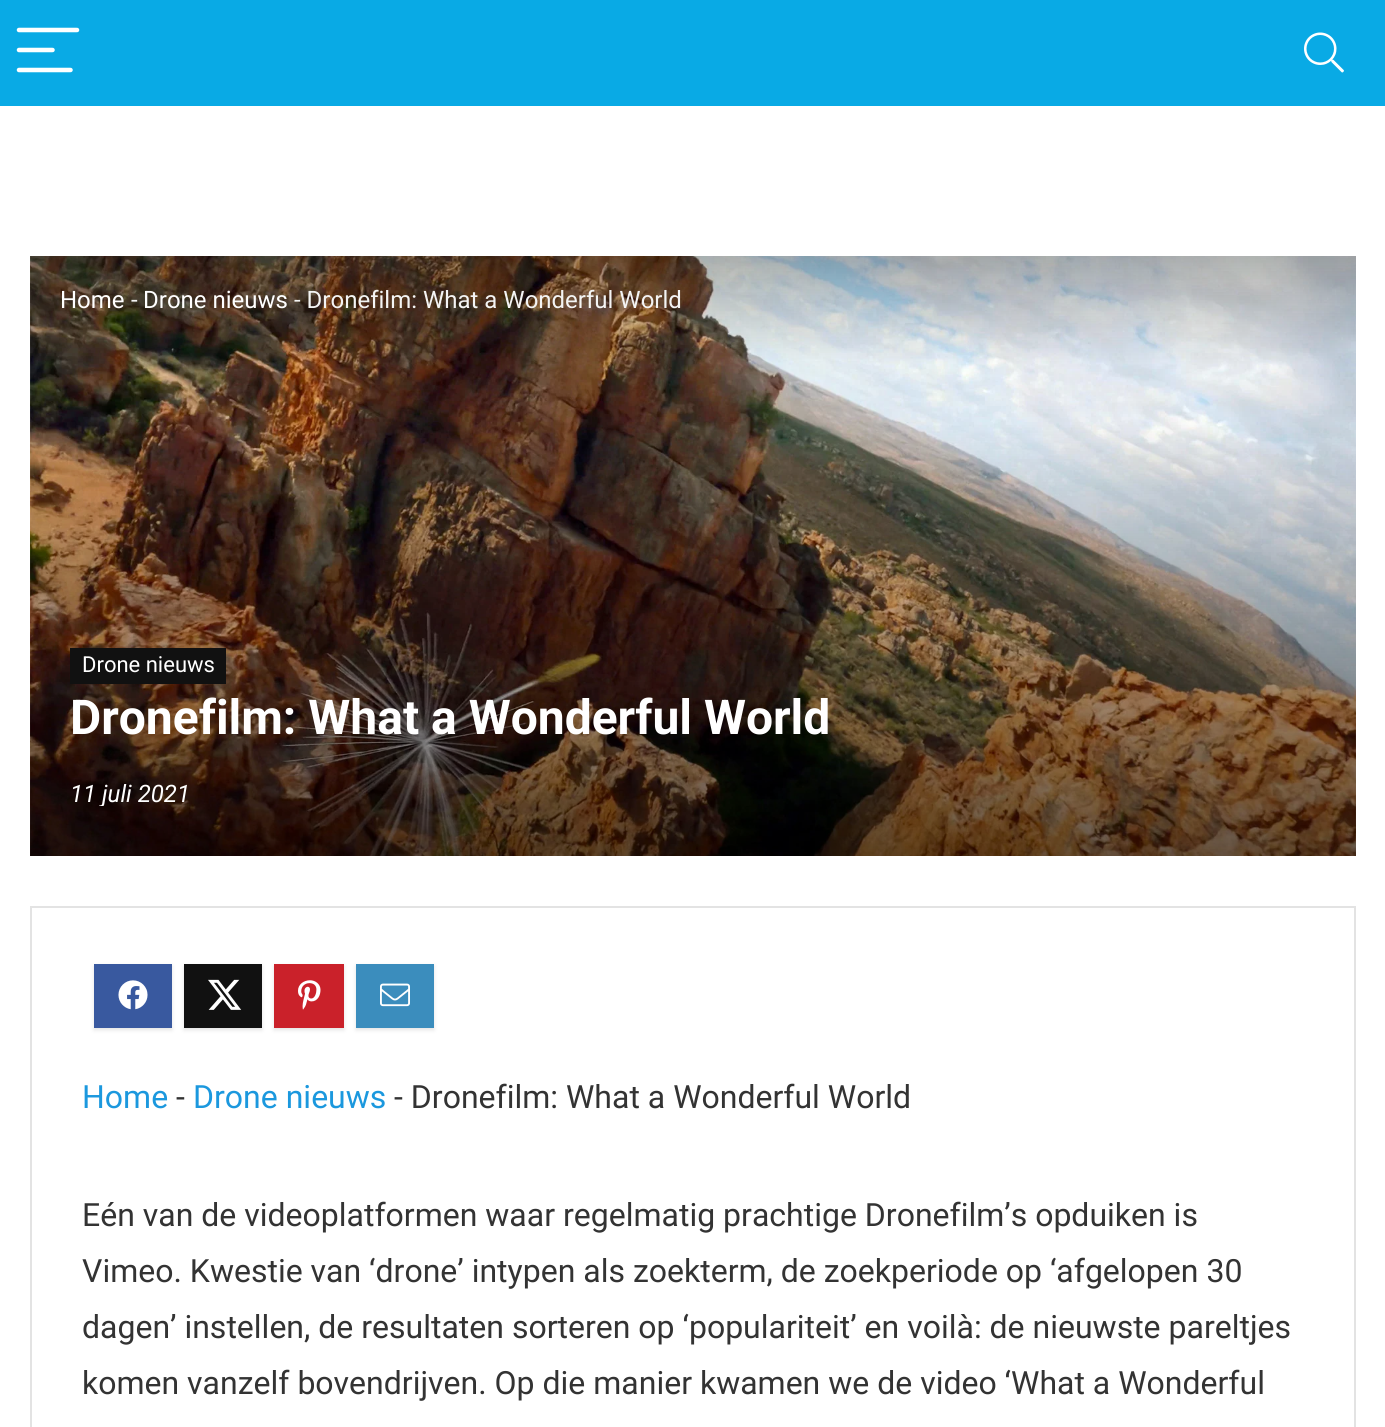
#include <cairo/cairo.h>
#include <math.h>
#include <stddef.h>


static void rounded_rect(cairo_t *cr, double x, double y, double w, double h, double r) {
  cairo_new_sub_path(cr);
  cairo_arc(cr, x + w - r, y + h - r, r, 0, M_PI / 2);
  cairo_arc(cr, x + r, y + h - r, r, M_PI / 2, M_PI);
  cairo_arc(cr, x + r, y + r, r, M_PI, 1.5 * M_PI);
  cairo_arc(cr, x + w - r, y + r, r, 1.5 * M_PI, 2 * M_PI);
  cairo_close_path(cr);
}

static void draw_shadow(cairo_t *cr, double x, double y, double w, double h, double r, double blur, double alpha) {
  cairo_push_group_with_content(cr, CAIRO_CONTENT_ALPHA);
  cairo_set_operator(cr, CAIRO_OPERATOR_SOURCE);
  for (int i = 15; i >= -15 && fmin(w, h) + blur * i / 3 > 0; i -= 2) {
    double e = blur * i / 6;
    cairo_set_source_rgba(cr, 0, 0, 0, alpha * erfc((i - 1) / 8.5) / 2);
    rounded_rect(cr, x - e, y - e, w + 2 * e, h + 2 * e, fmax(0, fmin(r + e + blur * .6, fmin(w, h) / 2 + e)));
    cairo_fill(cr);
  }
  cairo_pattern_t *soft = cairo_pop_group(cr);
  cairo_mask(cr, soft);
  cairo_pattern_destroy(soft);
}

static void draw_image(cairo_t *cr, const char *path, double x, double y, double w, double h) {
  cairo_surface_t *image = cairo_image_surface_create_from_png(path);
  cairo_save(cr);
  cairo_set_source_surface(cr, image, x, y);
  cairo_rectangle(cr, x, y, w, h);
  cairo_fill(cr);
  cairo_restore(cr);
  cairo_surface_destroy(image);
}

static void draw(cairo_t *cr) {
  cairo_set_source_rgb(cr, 1, 1, 1);
  cairo_paint(cr);
  cairo_set_source_rgb(cr, 9 / 255.0, 170 / 255.0, 229 / 255.0);
  cairo_rectangle(cr, 0, 0, 1385, 106);
  cairo_fill(cr);
  cairo_new_path(cr);
  cairo_move_to(cr, 19, 30);
  cairo_line_to(cr, 77, 30);
  cairo_set_source_rgb(cr, 1, 1, 1);
  cairo_set_line_width(cr, 4.5);
  cairo_set_line_cap(cr, CAIRO_LINE_CAP_ROUND);
  cairo_stroke(cr);
  cairo_new_path(cr);
  cairo_move_to(cr, 19, 50);
  cairo_line_to(cr, 52.5, 50);
  cairo_move_to(cr, 19, 70);
  cairo_line_to(cr, 70.5, 70);
  cairo_stroke(cr);
  draw_image(cr, "images/1.png", 1304, 32, 40, 41);
  draw_image(cr, "images/2.png", 30, 256, 1326, 600);
  cairo_set_source_rgb(cr, 17 / 255.0, 17 / 255.0, 17 / 255.0);
  cairo_rectangle(cr, 70, 648, 156, 36);
  cairo_fill(cr);
  cairo_rectangle(cr, 31, 907, 1324, 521);
  cairo_set_source_rgb(cr, 227 / 255.0, 227 / 255.0, 227 / 255.0);
  cairo_set_line_width(cr, 2);
  cairo_set_line_cap(cr, CAIRO_LINE_CAP_BUTT);
  cairo_stroke(cr);
  cairo_set_source_rgb(cr, 228 / 255.0, 228 / 255.0, 228 / 255.0);
  draw_shadow(cr, 94, 966, 78, 64, 0, 2, 1);
  cairo_set_source_rgb(cr, 57 / 255.0, 89 / 255.0, 159 / 255.0);
  cairo_rectangle(cr, 94, 964, 78, 64);
  cairo_fill(cr);
  draw_image(cr, "images/3.png", 118, 980, 30, 30);
  cairo_set_source_rgb(cr, 228 / 255.0, 228 / 255.0, 228 / 255.0);
  draw_shadow(cr, 184, 966, 78, 64, 0, 2, 1);
  cairo_set_source_rgb(cr, 17 / 255.0, 17 / 255.0, 17 / 255.0);
  cairo_rectangle(cr, 184, 964, 78, 64);
  cairo_fill(cr);
  draw_image(cr, "images/4.png", 208, 979, 34, 31);
  cairo_set_source_rgb(cr, 228 / 255.0, 228 / 255.0, 228 / 255.0);
  draw_shadow(cr, 274, 966, 70, 64, 0, 2, 1);
  cairo_set_source_rgb(cr, 202 / 255.0, 33 / 255.0, 42 / 255.0);
  cairo_rectangle(cr, 274, 964, 70, 64);
  cairo_fill(cr);
  draw_image(cr, "images/5.png", 298, 980, 23, 30);
  cairo_set_source_rgb(cr, 228 / 255.0, 228 / 255.0, 228 / 255.0);
  draw_shadow(cr, 356, 966, 78, 64, 0, 2, 1);
  cairo_set_source_rgb(cr, 59 / 255.0, 141 / 255.0, 189 / 255.0);
  cairo_rectangle(cr, 356, 964, 78, 64);
  cairo_fill(cr);
  draw_image(cr, "images/6.png", 380, 983, 30, 24);
  cairo_select_font_face(cr, "Roboto", CAIRO_FONT_SLANT_NORMAL, CAIRO_FONT_WEIGHT_NORMAL);
  cairo_set_font_size(cr, 24);
  cairo_set_source_rgb(cr, 1, 1, 1);
  cairo_move_to(cr, 60, 308);
  cairo_show_text(cr, "Home");
  cairo_set_source_rgb(cr, 244 / 255.0, 244 / 255.0, 244 / 255.0);
  cairo_move_to(cr, 131, 308);
  cairo_show_text(cr, "-");
  cairo_set_source_rgb(cr, 1, 1, 1);
  cairo_move_to(cr, 143, 308);
  cairo_show_text(cr, "Drone nieuws");
  cairo_set_source_rgb(cr, 244 / 255.0, 244 / 255.0, 244 / 255.0);
  cairo_move_to(cr, 294, 308);
  cairo_show_text(cr, "- Dronefilm: What a Wonderful World");
  cairo_set_font_size(cr, 22);
  cairo_set_source_rgb(cr, 1, 1, 1);
  cairo_move_to(cr, 82, 672);
  cairo_show_text(cr, "Drone nieuws");
  cairo_select_font_face(cr, "Roboto", CAIRO_FONT_SLANT_NORMAL, CAIRO_FONT_WEIGHT_BOLD);
  cairo_set_font_size(cr, 48);
  cairo_move_to(cr, 70, 734);
  cairo_show_text(cr, "Dronefilm: What a Wonderful World");
  cairo_save(cr);
  cairo_rectangle(cr, 70, 782, 1246, 24);
  cairo_clip(cr);
  cairo_select_font_face(cr, "Roboto", CAIRO_FONT_SLANT_ITALIC, CAIRO_FONT_WEIGHT_NORMAL);
  cairo_set_font_size(cr, 24);
  cairo_move_to(cr, 70, 802);
  cairo_show_text(cr, "11 juli 2021");
  cairo_restore(cr);
  cairo_select_font_face(cr, "Roboto", CAIRO_FONT_SLANT_NORMAL, CAIRO_FONT_WEIGHT_NORMAL);
  cairo_set_font_size(cr, 32);
  cairo_set_source_rgb(cr, 27 / 255.0, 152 / 255.0, 222 / 255.0);
  cairo_move_to(cr, 82, 1108);
  cairo_show_text(cr, "Home");
  cairo_set_source_rgb(cr, 51 / 255.0, 51 / 255.0, 51 / 255.0);
  cairo_move_to(cr, 176, 1108);
  cairo_show_text(cr, "-");
  cairo_set_source_rgb(cr, 27 / 255.0, 152 / 255.0, 222 / 255.0);
  cairo_move_to(cr, 193, 1108);
  cairo_show_text(cr, "Drone nieuws");
  cairo_set_source_rgb(cr, 51 / 255.0, 51 / 255.0, 51 / 255.0);
  cairo_move_to(cr, 394, 1108);
  cairo_show_text(cr, "- Dronefilm: What a Wonderful World");
  cairo_move_to(cr, 82, 1226);
  cairo_show_text(cr, "Eén van de videoplatformen waar regelmatig prachtige Dronefilm’s opduiken is");
  cairo_move_to(cr, 82, 1282);
  cairo_show_text(cr, "Vimeo. Kwestie van ‘drone’ intypen als zoekterm, de zoekperiode op ‘afgelopen 30");
  cairo_move_to(cr, 82, 1338);
  cairo_show_text(cr, "dagen’ instellen, de resultaten sorteren op ‘populariteit’ en voilà: de nieuwste pareltjes");
  cairo_move_to(cr, 82, 1394);
  cairo_show_text(cr, "komen vanzelf bovendrijven. Op die manier kwamen we de video ‘What a Wonderful");
}

int main(void) {
  cairo_surface_t *surface = cairo_image_surface_create(CAIRO_FORMAT_RGB24, 1385, 1427);
  cairo_t *cr = cairo_create(surface);
  cairo_font_options_t *options = cairo_font_options_create();
  cairo_font_options_set_hint_metrics(options, CAIRO_HINT_METRICS_OFF);
  cairo_font_options_set_hint_style(options, CAIRO_HINT_STYLE_NONE);
  cairo_set_font_options(cr, options);
  cairo_set_miter_limit(cr, 4);
  draw(cr);
  cairo_surface_write_to_png(surface, "out.png");
  cairo_font_options_destroy(options);
  cairo_destroy(cr);
  cairo_surface_destroy(surface);
  return 0;
}
